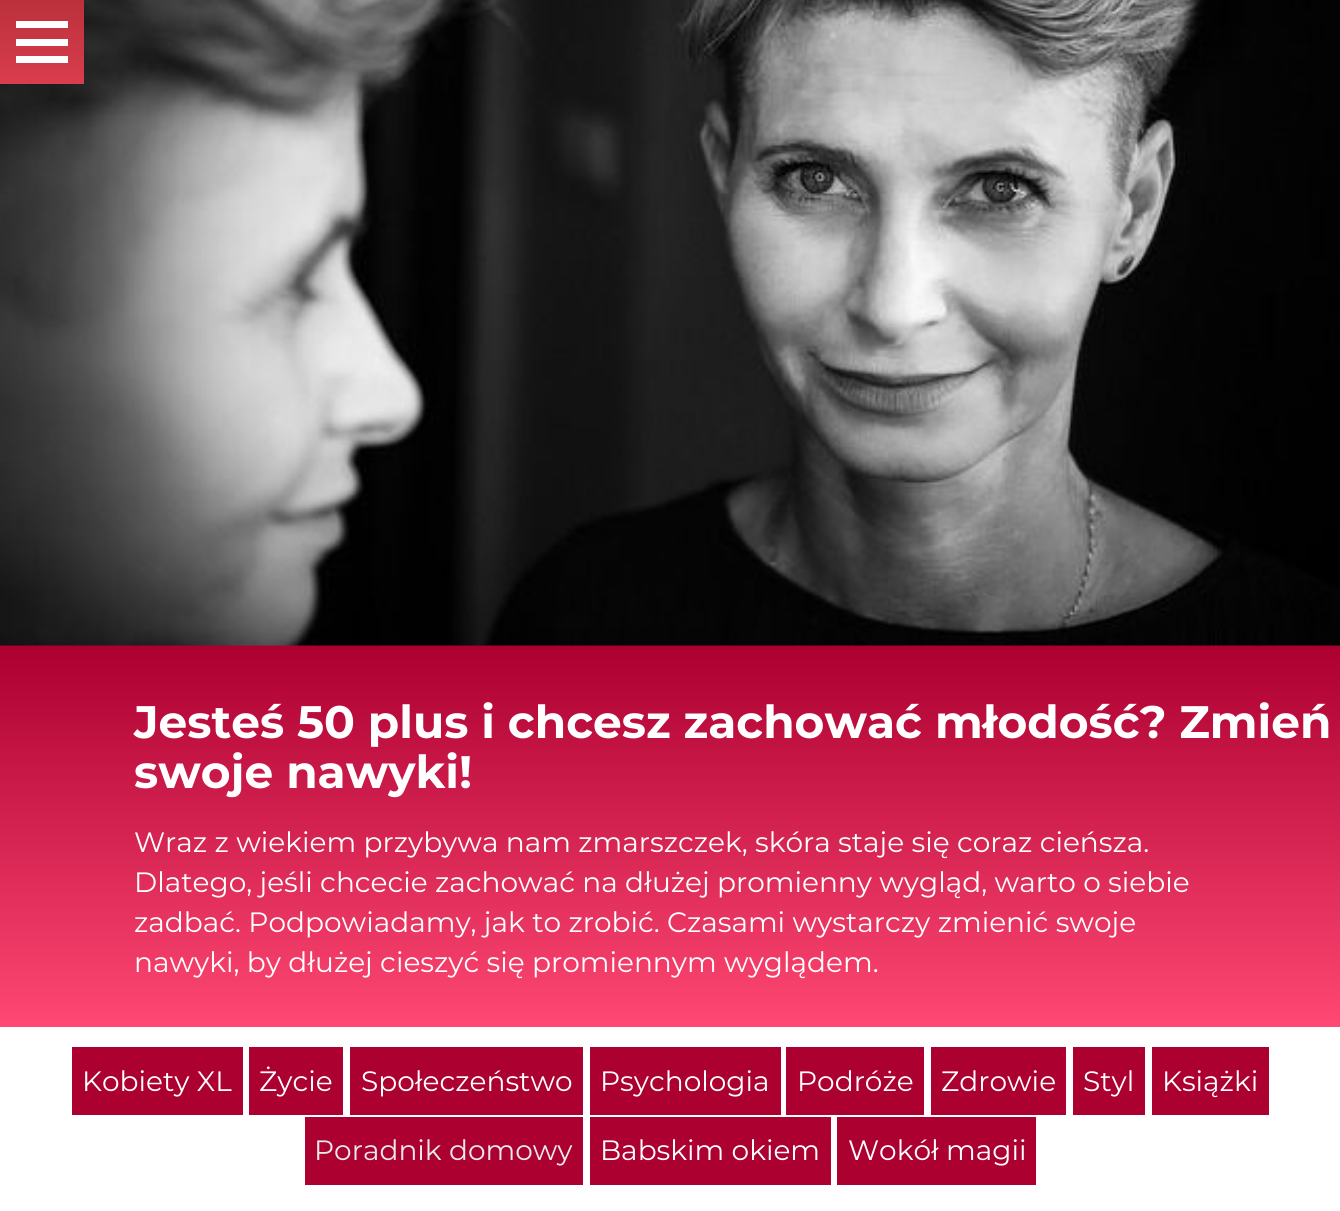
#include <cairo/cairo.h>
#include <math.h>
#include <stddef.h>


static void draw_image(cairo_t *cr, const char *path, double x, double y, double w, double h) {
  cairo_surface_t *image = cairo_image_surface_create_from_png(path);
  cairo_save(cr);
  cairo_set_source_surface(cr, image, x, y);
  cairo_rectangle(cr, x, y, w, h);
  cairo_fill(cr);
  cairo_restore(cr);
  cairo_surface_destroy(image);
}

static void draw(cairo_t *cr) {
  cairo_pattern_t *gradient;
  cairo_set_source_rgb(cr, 1, 1, 1);
  cairo_paint(cr);
  cairo_set_source_rgb(cr, 172 / 255.0, 0, 49 / 255.0);
  cairo_rectangle(cr, 0, 645, 1340, 1);
  cairo_fill(cr);
  draw_image(cr, "images/1.png", 0, 0, 1340, 646);
  gradient = cairo_pattern_create_linear(42, 0, 42, 84);
  cairo_pattern_add_color_stop_rgba(gradient, 0.01, 186 / 255.0, 49 / 255.0, 59 / 255.0, 1);
  cairo_pattern_add_color_stop_rgba(gradient, 1, 218 / 255.0, 61 / 255.0, 78 / 255.0, 1);
  cairo_set_source(cr, gradient);
  cairo_pattern_destroy(gradient);
  cairo_rectangle(cr, 0, 0, 84, 84);
  cairo_fill(cr);
  cairo_set_source_rgb(cr, 1, 1, 1);
  cairo_rectangle(cr, 16, 39, 52, 7);
  cairo_fill(cr);
  cairo_rectangle(cr, 16, 21, 52, 7);
  cairo_fill(cr);
  cairo_rectangle(cr, 16, 56, 52, 7);
  cairo_fill(cr);
  gradient = cairo_pattern_create_linear(670, 646, 670, 1027);
  cairo_pattern_add_color_stop_rgba(gradient, 0, 172 / 255.0, 0, 49 / 255.0, 1);
  cairo_pattern_add_color_stop_rgba(gradient, 1, 1, 72 / 255.0, 115 / 255.0, 1);
  cairo_set_source(cr, gradient);
  cairo_pattern_destroy(gradient);
  cairo_rectangle(cr, 0, 646, 1340, 381);
  cairo_fill(cr);
  cairo_set_source_rgb(cr, 172 / 255.0, 0, 49 / 255.0);
  cairo_rectangle(cr, 72, 1047, 171, 68);
  cairo_fill(cr);
  cairo_rectangle(cr, 249, 1047, 94, 68);
  cairo_fill(cr);
  cairo_rectangle(cr, 350, 1047, 233, 68);
  cairo_fill(cr);
  cairo_rectangle(cr, 590, 1047, 191, 68);
  cairo_fill(cr);
  cairo_rectangle(cr, 786, 1047, 138, 68);
  cairo_fill(cr);
  cairo_rectangle(cr, 931, 1047, 135, 68);
  cairo_fill(cr);
  cairo_rectangle(cr, 1073, 1047, 72, 68);
  cairo_fill(cr);
  cairo_rectangle(cr, 1152, 1047, 117, 68);
  cairo_fill(cr);
  cairo_rectangle(cr, 305, 1117, 278, 68);
  cairo_fill(cr);
  cairo_rectangle(cr, 590, 1117, 241, 68);
  cairo_fill(cr);
  cairo_rectangle(cr, 837, 1117, 199, 68);
  cairo_fill(cr);
  cairo_select_font_face(cr, "Montserrat", CAIRO_FONT_SLANT_NORMAL, CAIRO_FONT_WEIGHT_BOLD);
  cairo_set_font_size(cr, 45.5);
  cairo_set_source_rgb(cr, 1, 1, 1);
  cairo_move_to(cr, 134, 738);
  cairo_show_text(cr, "Jesteś 50 plus i chcesz zachować młodość? Zmień");
  cairo_move_to(cr, 134, 788);
  cairo_show_text(cr, "swoje nawyki!");
  cairo_select_font_face(cr, "Montserrat", CAIRO_FONT_SLANT_NORMAL, CAIRO_FONT_WEIGHT_NORMAL);
  cairo_set_font_size(cr, 28);
  cairo_move_to(cr, 134, 852);
  cairo_show_text(cr, "Wraz z wiekiem przybywa nam zmarszczek, skóra staje się coraz cieńsza.");
  cairo_move_to(cr, 134, 892);
  cairo_show_text(cr, "Dlatego, jeśli chcecie zachować na dłużej promienny wygląd, warto o siebie");
  cairo_move_to(cr, 134, 932);
  cairo_show_text(cr, "zadbać. Podpowiadamy, jak to zrobić. Czasami wystarczy zmienić swoje");
  cairo_move_to(cr, 134, 972);
  cairo_show_text(cr, "nawyki, by dłużej cieszyć się promiennym wyglądem.");
  cairo_move_to(cr, 82, 1091);
  cairo_show_text(cr, "Kobiety XL");
  cairo_move_to(cr, 259, 1091);
  cairo_show_text(cr, "Życie");
  cairo_move_to(cr, 361, 1091);
  cairo_show_text(cr, "Społeczeństwo");
  cairo_move_to(cr, 600, 1091);
  cairo_show_text(cr, "Psychologia");
  cairo_move_to(cr, 797, 1091);
  cairo_show_text(cr, "Podróże");
  cairo_move_to(cr, 941, 1091);
  cairo_show_text(cr, "Zdrowie");
  cairo_move_to(cr, 1083, 1091);
  cairo_show_text(cr, "Styl");
  cairo_move_to(cr, 1162, 1091);
  cairo_show_text(cr, "Książki");
  cairo_set_source_rgb(cr, 234 / 255.0, 234 / 255.0, 234 / 255.0);
  cairo_move_to(cr, 314, 1160);
  cairo_show_text(cr, "Poradnik domowy");
  cairo_set_source_rgb(cr, 1, 1, 1);
  cairo_move_to(cr, 600, 1160);
  cairo_show_text(cr, "Babskim okiem");
  cairo_move_to(cr, 848, 1160);
  cairo_show_text(cr, "Wokół magii");
}

int main(void) {
  cairo_surface_t *surface = cairo_image_surface_create(CAIRO_FORMAT_RGB24, 1340, 1211);
  cairo_t *cr = cairo_create(surface);
  cairo_font_options_t *options = cairo_font_options_create();
  cairo_font_options_set_hint_metrics(options, CAIRO_HINT_METRICS_OFF);
  cairo_font_options_set_hint_style(options, CAIRO_HINT_STYLE_NONE);
  cairo_set_font_options(cr, options);
  cairo_set_miter_limit(cr, 4);
  draw(cr);
  cairo_surface_write_to_png(surface, "out.png");
  cairo_font_options_destroy(options);
  cairo_destroy(cr);
  cairo_surface_destroy(surface);
  return 0;
}
